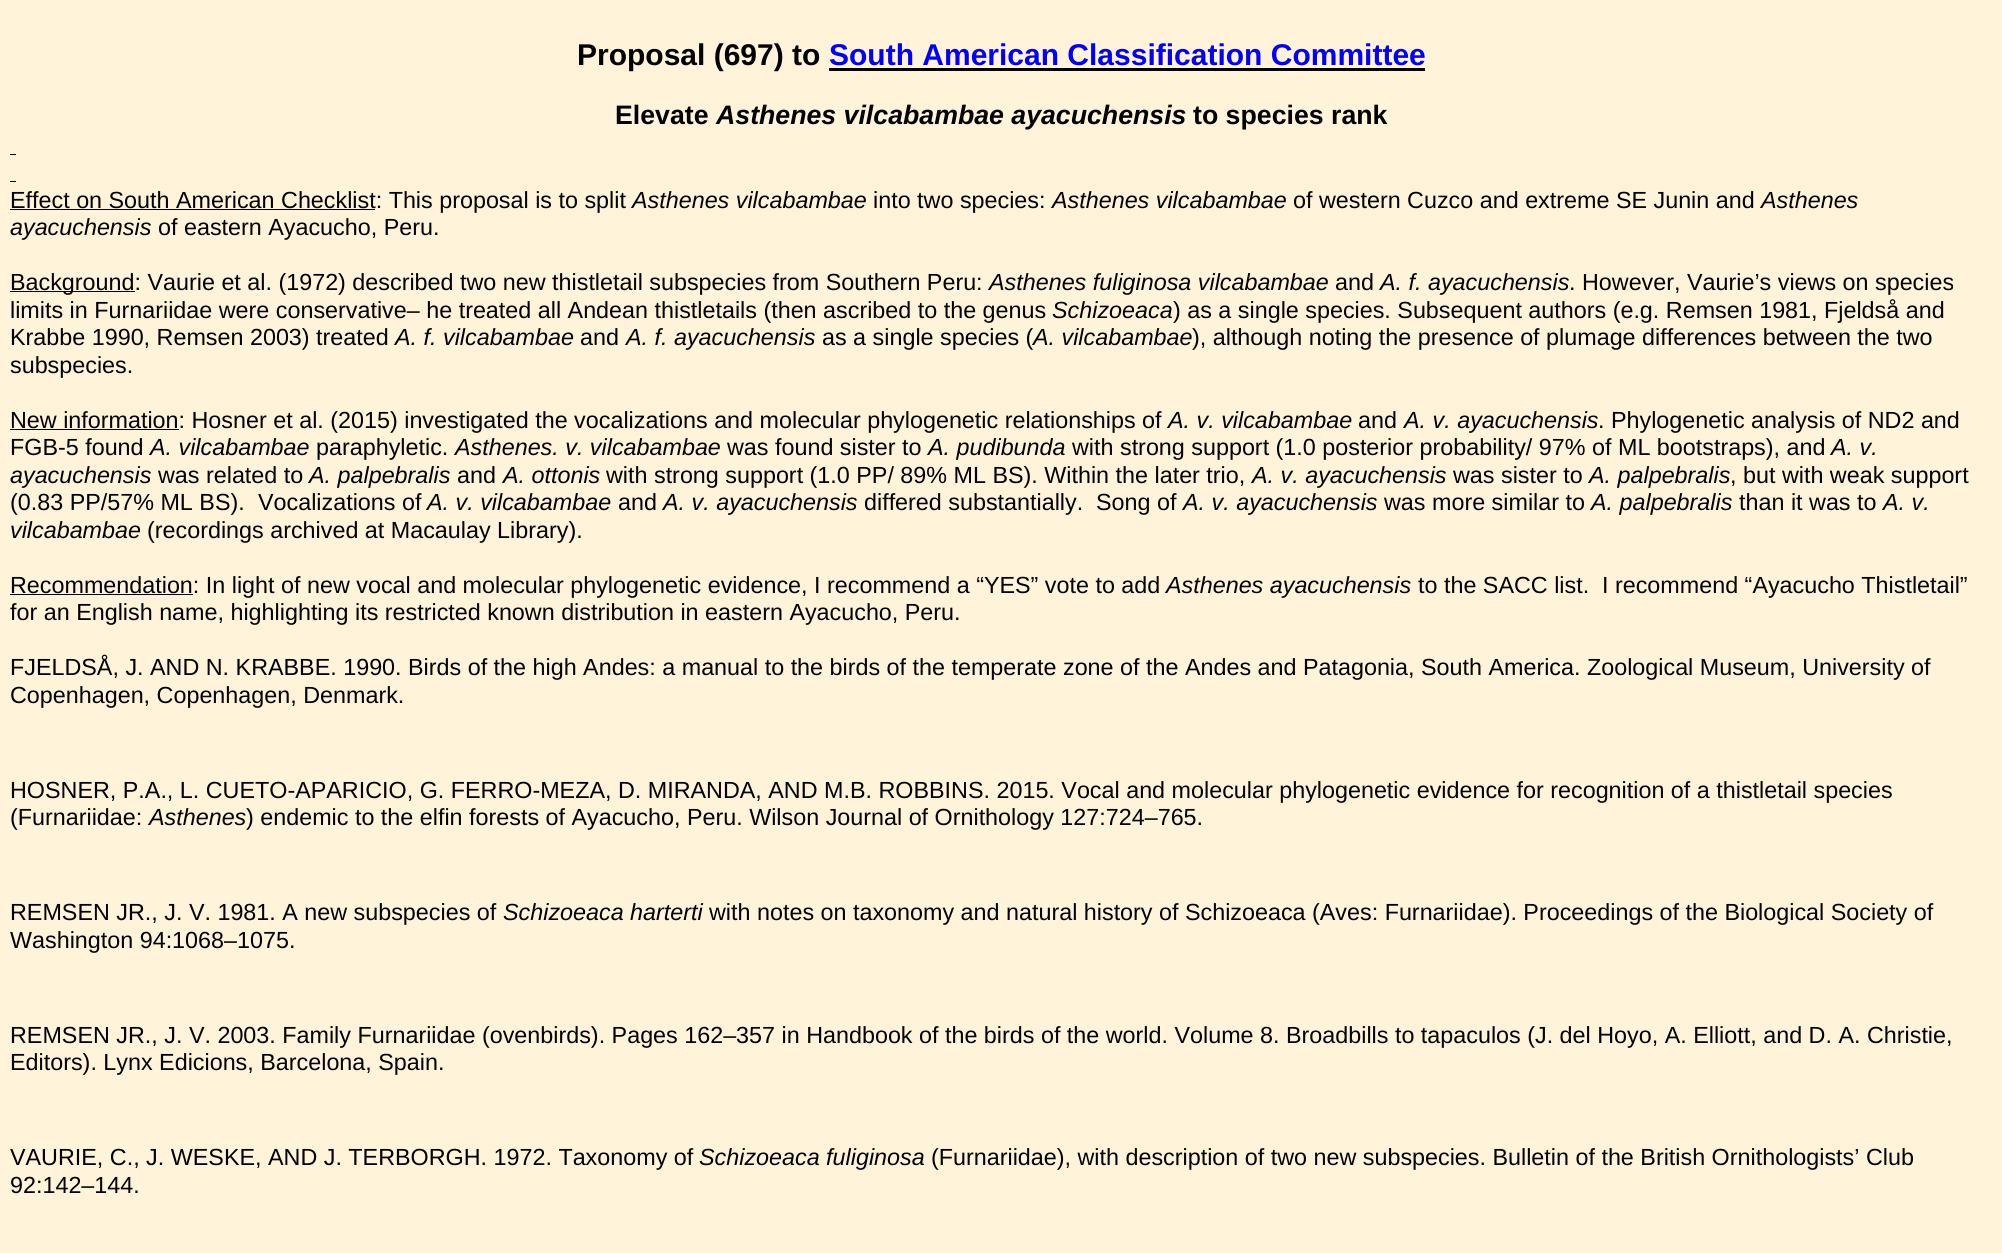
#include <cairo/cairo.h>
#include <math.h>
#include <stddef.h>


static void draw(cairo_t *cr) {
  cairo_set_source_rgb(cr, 1, 243 / 255.0, 217 / 255.0);
  cairo_paint(cr);
  cairo_set_source_rgb(cr, 0, 0, 0);
  cairo_rectangle(cr, 829, 68, 596, 3);
  cairo_fill(cr);
  cairo_rectangle(cr, 10, 154, 6, 1);
  cairo_fill(cr);
  cairo_rectangle(cr, 10, 181, 6, 1);
  cairo_fill(cr);
  cairo_rectangle(cr, 10, 209, 365, 1);
  cairo_fill(cr);
  cairo_rectangle(cr, 10, 291, 125, 1);
  cairo_fill(cr);
  cairo_rectangle(cr, 10, 429, 169, 1);
  cairo_fill(cr);
  cairo_rectangle(cr, 10, 594, 183, 1);
  cairo_fill(cr);
  cairo_select_font_face(cr, "Liberation Sans", CAIRO_FONT_SLANT_NORMAL, CAIRO_FONT_WEIGHT_BOLD);
  cairo_set_font_size(cr, 30);
  cairo_move_to(cr, 577, 65);
  cairo_show_text(cr, "Proposal (697) to");
  cairo_set_source_rgb(cr, 0, 0, 1);
  cairo_move_to(cr, 829, 65);
  cairo_show_text(cr, "South American Classification Committee");
  cairo_set_font_size(cr, 26.7);
  cairo_set_source_rgb(cr, 0, 0, 0);
  cairo_move_to(cr, 615, 124);
  cairo_show_text(cr, "Elevate");
  cairo_select_font_face(cr, "Liberation Sans", CAIRO_FONT_SLANT_ITALIC, CAIRO_FONT_WEIGHT_BOLD);
  cairo_move_to(cr, 716, 124);
  cairo_show_text(cr, "Asthenes vilcabambae ayacuchensis");
  cairo_select_font_face(cr, "Liberation Sans", CAIRO_FONT_SLANT_NORMAL, CAIRO_FONT_WEIGHT_BOLD);
  cairo_move_to(cr, 1193, 124);
  cairo_show_text(cr, "to species rank");
  cairo_select_font_face(cr, "Liberation Sans", CAIRO_FONT_SLANT_NORMAL, CAIRO_FONT_WEIGHT_NORMAL);
  cairo_set_font_size(cr, 23.33);
  cairo_move_to(cr, 10, 208);
  cairo_show_text(cr, "Effect on South American Checklist: This proposal is to split");
  cairo_select_font_face(cr, "Liberation Sans", CAIRO_FONT_SLANT_ITALIC, CAIRO_FONT_WEIGHT_NORMAL);
  cairo_move_to(cr, 632, 208);
  cairo_show_text(cr, "Asthenes vilcabambae");
  cairo_select_font_face(cr, "Liberation Sans", CAIRO_FONT_SLANT_NORMAL, CAIRO_FONT_WEIGHT_NORMAL);
  cairo_move_to(cr, 873, 208);
  cairo_show_text(cr, "into two species:");
  cairo_select_font_face(cr, "Liberation Sans", CAIRO_FONT_SLANT_ITALIC, CAIRO_FONT_WEIGHT_NORMAL);
  cairo_move_to(cr, 1052, 208);
  cairo_show_text(cr, "Asthenes vilcabambae");
  cairo_select_font_face(cr, "Liberation Sans", CAIRO_FONT_SLANT_NORMAL, CAIRO_FONT_WEIGHT_NORMAL);
  cairo_move_to(cr, 1293, 208);
  cairo_show_text(cr, "of western Cuzco and extreme SE Junin and");
  cairo_select_font_face(cr, "Liberation Sans", CAIRO_FONT_SLANT_ITALIC, CAIRO_FONT_WEIGHT_NORMAL);
  cairo_move_to(cr, 1761, 208);
  cairo_show_text(cr, "Asthenes");
  cairo_move_to(cr, 10, 235);
  cairo_show_text(cr, "ayacuchensis");
  cairo_select_font_face(cr, "Liberation Sans", CAIRO_FONT_SLANT_NORMAL, CAIRO_FONT_WEIGHT_NORMAL);
  cairo_move_to(cr, 158, 235);
  cairo_show_text(cr, "of eastern Ayacucho, Peru.");
  cairo_move_to(cr, 10, 290);
  cairo_show_text(cr, "Background: Vaurie et al. (1972) described two new thistletail subspecies from Southern Peru:");
  cairo_select_font_face(cr, "Liberation Sans", CAIRO_FONT_SLANT_ITALIC, CAIRO_FONT_WEIGHT_NORMAL);
  cairo_move_to(cr, 989, 290);
  cairo_show_text(cr, "Asthenes fuliginosa vilcabambae");
  cairo_select_font_face(cr, "Liberation Sans", CAIRO_FONT_SLANT_NORMAL, CAIRO_FONT_WEIGHT_NORMAL);
  cairo_move_to(cr, 1335, 290);
  cairo_show_text(cr, "and");
  cairo_select_font_face(cr, "Liberation Sans", CAIRO_FONT_SLANT_ITALIC, CAIRO_FONT_WEIGHT_NORMAL);
  cairo_move_to(cr, 1380, 290);
  cairo_show_text(cr, "A. f. ayacuchensis");
  cairo_select_font_face(cr, "Liberation Sans", CAIRO_FONT_SLANT_NORMAL, CAIRO_FONT_WEIGHT_NORMAL);
  cairo_move_to(cr, 1569, 290);
  cairo_show_text(cr, ". However, Vaurie’s views on species");
  cairo_move_to(cr, 10, 318);
  cairo_show_text(cr, "limits in Furnariidae were conservative– he treated all Andean thistletails (then ascribed to the genus");
  cairo_select_font_face(cr, "Liberation Sans", CAIRO_FONT_SLANT_ITALIC, CAIRO_FONT_WEIGHT_NORMAL);
  cairo_move_to(cr, 1052, 318);
  cairo_show_text(cr, "Schizoeaca");
  cairo_select_font_face(cr, "Liberation Sans", CAIRO_FONT_SLANT_NORMAL, CAIRO_FONT_WEIGHT_NORMAL);
  cairo_move_to(cr, 1173, 318);
  cairo_show_text(cr, ") as a single species. Subsequent authors (e.g. Remsen 1981, Fjeldså and");
  cairo_move_to(cr, 10, 345);
  cairo_show_text(cr, "Krabbe 1990, Remsen 2003) treated");
  cairo_select_font_face(cr, "Liberation Sans", CAIRO_FONT_SLANT_ITALIC, CAIRO_FONT_WEIGHT_NORMAL);
  cairo_move_to(cr, 395, 345);
  cairo_show_text(cr, "A. f. vilcabambae");
  cairo_select_font_face(cr, "Liberation Sans", CAIRO_FONT_SLANT_NORMAL, CAIRO_FONT_WEIGHT_NORMAL);
  cairo_move_to(cr, 580, 345);
  cairo_show_text(cr, "and");
  cairo_select_font_face(cr, "Liberation Sans", CAIRO_FONT_SLANT_ITALIC, CAIRO_FONT_WEIGHT_NORMAL);
  cairo_move_to(cr, 626, 345);
  cairo_show_text(cr, "A. f. ayacuchensis");
  cairo_select_font_face(cr, "Liberation Sans", CAIRO_FONT_SLANT_NORMAL, CAIRO_FONT_WEIGHT_NORMAL);
  cairo_move_to(cr, 822, 345);
  cairo_show_text(cr, "as a single species (");
  cairo_select_font_face(cr, "Liberation Sans", CAIRO_FONT_SLANT_ITALIC, CAIRO_FONT_WEIGHT_NORMAL);
  cairo_move_to(cr, 1033, 345);
  cairo_show_text(cr, "A. vilcabambae");
  cairo_select_font_face(cr, "Liberation Sans", CAIRO_FONT_SLANT_NORMAL, CAIRO_FONT_WEIGHT_NORMAL);
  cairo_move_to(cr, 1192, 345);
  cairo_show_text(cr, "), although noting the presence of plumage differences between the two");
  cairo_move_to(cr, 10, 373);
  cairo_show_text(cr, "subspecies.");
  cairo_move_to(cr, 10, 428);
  cairo_show_text(cr, "New information: Hosner et al. (2015) investigated the vocalizations and molecular phylogenetic relationships of");
  cairo_select_font_face(cr, "Liberation Sans", CAIRO_FONT_SLANT_ITALIC, CAIRO_FONT_WEIGHT_NORMAL);
  cairo_move_to(cr, 1168, 428);
  cairo_show_text(cr, "A. v. vilcabambae");
  cairo_select_font_face(cr, "Liberation Sans", CAIRO_FONT_SLANT_NORMAL, CAIRO_FONT_WEIGHT_NORMAL);
  cairo_move_to(cr, 1358, 428);
  cairo_show_text(cr, "and");
  cairo_select_font_face(cr, "Liberation Sans", CAIRO_FONT_SLANT_ITALIC, CAIRO_FONT_WEIGHT_NORMAL);
  cairo_move_to(cr, 1404, 428);
  cairo_show_text(cr, "A. v. ayacuchensis");
  cairo_select_font_face(cr, "Liberation Sans", CAIRO_FONT_SLANT_NORMAL, CAIRO_FONT_WEIGHT_NORMAL);
  cairo_move_to(cr, 1598, 428);
  cairo_show_text(cr, ". Phylogenetic analysis of ND2 and");
  cairo_move_to(cr, 10, 455);
  cairo_show_text(cr, "FGB-5 found");
  cairo_select_font_face(cr, "Liberation Sans", CAIRO_FONT_SLANT_ITALIC, CAIRO_FONT_WEIGHT_NORMAL);
  cairo_move_to(cr, 150, 455);
  cairo_show_text(cr, "A. vilcabambae");
  cairo_select_font_face(cr, "Liberation Sans", CAIRO_FONT_SLANT_NORMAL, CAIRO_FONT_WEIGHT_NORMAL);
  cairo_move_to(cr, 316, 455);
  cairo_show_text(cr, "paraphyletic.");
  cairo_select_font_face(cr, "Liberation Sans", CAIRO_FONT_SLANT_ITALIC, CAIRO_FONT_WEIGHT_NORMAL);
  cairo_move_to(cr, 455, 455);
  cairo_show_text(cr, "Asthenes. v. vilcabambae");
  cairo_select_font_face(cr, "Liberation Sans", CAIRO_FONT_SLANT_NORMAL, CAIRO_FONT_WEIGHT_NORMAL);
  cairo_move_to(cr, 727, 455);
  cairo_show_text(cr, "was found sister to");
  cairo_select_font_face(cr, "Liberation Sans", CAIRO_FONT_SLANT_ITALIC, CAIRO_FONT_WEIGHT_NORMAL);
  cairo_move_to(cr, 928, 455);
  cairo_show_text(cr, "A. pudibunda");
  cairo_select_font_face(cr, "Liberation Sans", CAIRO_FONT_SLANT_NORMAL, CAIRO_FONT_WEIGHT_NORMAL);
  cairo_move_to(cr, 1072, 455);
  cairo_show_text(cr, "with strong support (1.0 posterior probability/ 97% of ML bootstraps), and");
  cairo_select_font_face(cr, "Liberation Sans", CAIRO_FONT_SLANT_ITALIC, CAIRO_FONT_WEIGHT_NORMAL);
  cairo_move_to(cr, 1831, 455);
  cairo_show_text(cr, "A. v.");
  cairo_move_to(cr, 10, 483);
  cairo_show_text(cr, "ayacuchensis");
  cairo_select_font_face(cr, "Liberation Sans", CAIRO_FONT_SLANT_NORMAL, CAIRO_FONT_WEIGHT_NORMAL);
  cairo_move_to(cr, 158, 483);
  cairo_show_text(cr, "was related to");
  cairo_select_font_face(cr, "Liberation Sans", CAIRO_FONT_SLANT_ITALIC, CAIRO_FONT_WEIGHT_NORMAL);
  cairo_move_to(cr, 309, 483);
  cairo_show_text(cr, "A. palpebralis");
  cairo_select_font_face(cr, "Liberation Sans", CAIRO_FONT_SLANT_NORMAL, CAIRO_FONT_WEIGHT_NORMAL);
  cairo_move_to(cr, 457, 483);
  cairo_show_text(cr, "and");
  cairo_select_font_face(cr, "Liberation Sans", CAIRO_FONT_SLANT_ITALIC, CAIRO_FONT_WEIGHT_NORMAL);
  cairo_move_to(cr, 503, 483);
  cairo_show_text(cr, "A. ottonis");
  cairo_select_font_face(cr, "Liberation Sans", CAIRO_FONT_SLANT_NORMAL, CAIRO_FONT_WEIGHT_NORMAL);
  cairo_move_to(cr, 606, 483);
  cairo_show_text(cr, "with strong support (1.0 PP/ 89% ML BS). Within the later trio,");
  cairo_select_font_face(cr, "Liberation Sans", CAIRO_FONT_SLANT_ITALIC, CAIRO_FONT_WEIGHT_NORMAL);
  cairo_move_to(cr, 1252, 483);
  cairo_show_text(cr, "A. v. ayacuchensis");
  cairo_select_font_face(cr, "Liberation Sans", CAIRO_FONT_SLANT_NORMAL, CAIRO_FONT_WEIGHT_NORMAL);
  cairo_move_to(cr, 1453, 483);
  cairo_show_text(cr, "was sister to");
  cairo_select_font_face(cr, "Liberation Sans", CAIRO_FONT_SLANT_ITALIC, CAIRO_FONT_WEIGHT_NORMAL);
  cairo_move_to(cr, 1589, 483);
  cairo_show_text(cr, "A. palpebralis");
  cairo_select_font_face(cr, "Liberation Sans", CAIRO_FONT_SLANT_NORMAL, CAIRO_FONT_WEIGHT_NORMAL);
  cairo_move_to(cr, 1730, 483);
  cairo_show_text(cr, ", but with weak support");
  cairo_move_to(cr, 10, 510);
  cairo_show_text(cr, "(0.83 PP/57% ML BS).");
  cairo_move_to(cr, 258, 510);
  cairo_show_text(cr, "Vocalizations of");
  cairo_select_font_face(cr, "Liberation Sans", CAIRO_FONT_SLANT_ITALIC, CAIRO_FONT_WEIGHT_NORMAL);
  cairo_move_to(cr, 427, 510);
  cairo_show_text(cr, "A. v. vilcabambae");
  cairo_select_font_face(cr, "Liberation Sans", CAIRO_FONT_SLANT_NORMAL, CAIRO_FONT_WEIGHT_NORMAL);
  cairo_move_to(cr, 618, 510);
  cairo_show_text(cr, "and");
  cairo_select_font_face(cr, "Liberation Sans", CAIRO_FONT_SLANT_ITALIC, CAIRO_FONT_WEIGHT_NORMAL);
  cairo_move_to(cr, 663, 510);
  cairo_show_text(cr, "A. v. ayacuchensis");
  cairo_select_font_face(cr, "Liberation Sans", CAIRO_FONT_SLANT_NORMAL, CAIRO_FONT_WEIGHT_NORMAL);
  cairo_move_to(cr, 864, 510);
  cairo_show_text(cr, "differed substantially.");
  cairo_move_to(cr, 1096, 510);
  cairo_show_text(cr, "Song of");
  cairo_select_font_face(cr, "Liberation Sans", CAIRO_FONT_SLANT_ITALIC, CAIRO_FONT_WEIGHT_NORMAL);
  cairo_move_to(cr, 1183, 510);
  cairo_show_text(cr, "A. v. ayacuchensis");
  cairo_select_font_face(cr, "Liberation Sans", CAIRO_FONT_SLANT_NORMAL, CAIRO_FONT_WEIGHT_NORMAL);
  cairo_move_to(cr, 1384, 510);
  cairo_show_text(cr, "was more similar to");
  cairo_select_font_face(cr, "Liberation Sans", CAIRO_FONT_SLANT_ITALIC, CAIRO_FONT_WEIGHT_NORMAL);
  cairo_move_to(cr, 1591, 510);
  cairo_show_text(cr, "A. palpebralis");
  cairo_select_font_face(cr, "Liberation Sans", CAIRO_FONT_SLANT_NORMAL, CAIRO_FONT_WEIGHT_NORMAL);
  cairo_move_to(cr, 1739, 510);
  cairo_show_text(cr, "than it was to");
  cairo_select_font_face(cr, "Liberation Sans", CAIRO_FONT_SLANT_ITALIC, CAIRO_FONT_WEIGHT_NORMAL);
  cairo_move_to(cr, 1883, 510);
  cairo_show_text(cr, "A. v.");
  cairo_move_to(cr, 10, 538);
  cairo_show_text(cr, "vilcabambae");
  cairo_select_font_face(cr, "Liberation Sans", CAIRO_FONT_SLANT_NORMAL, CAIRO_FONT_WEIGHT_NORMAL);
  cairo_move_to(cr, 147, 538);
  cairo_show_text(cr, "(recordings archived at Macaulay Library).");
  cairo_move_to(cr, 10, 593);
  cairo_show_text(cr, "Recommendation: In light of new vocal and molecular phylogenetic evidence, I recommend a “YES” vote to add");
  cairo_select_font_face(cr, "Liberation Sans", CAIRO_FONT_SLANT_ITALIC, CAIRO_FONT_WEIGHT_NORMAL);
  cairo_move_to(cr, 1166, 593);
  cairo_show_text(cr, "Asthenes ayacuchensis");
  cairo_select_font_face(cr, "Liberation Sans", CAIRO_FONT_SLANT_NORMAL, CAIRO_FONT_WEIGHT_NORMAL);
  cairo_move_to(cr, 1418, 593);
  cairo_show_text(cr, "to the SACC list.");
  cairo_move_to(cr, 1602, 593);
  cairo_show_text(cr, "I recommend “Ayacucho Thistletail”");
  cairo_move_to(cr, 10, 620);
  cairo_show_text(cr, "for an English name, highlighting its restricted known distribution in eastern Ayacucho, Peru.");
  cairo_move_to(cr, 10, 675);
  cairo_show_text(cr, "FJELDSÅ, J. AND N. KRABBE. 1990. Birds of the high Andes: a manual to the birds of the temperate zone of the Andes and Patagonia, South America. Zoological Museum, University of");
  cairo_move_to(cr, 10, 703);
  cairo_show_text(cr, "Copenhagen, Copenhagen, Denmark.");
  cairo_move_to(cr, 10, 798);
  cairo_show_text(cr, "HOSNER, P.A., L. CUETO-APARICIO, G. FERRO-MEZA, D. MIRANDA, AND M.B. ROBBINS. 2015. Vocal and molecular phylogenetic evidence for recognition of a thistletail species");
  cairo_move_to(cr, 10, 825);
  cairo_show_text(cr, "(Furnariidae:");
  cairo_select_font_face(cr, "Liberation Sans", CAIRO_FONT_SLANT_ITALIC, CAIRO_FONT_WEIGHT_NORMAL);
  cairo_move_to(cr, 149, 825);
  cairo_show_text(cr, "Asthenes");
  cairo_select_font_face(cr, "Liberation Sans", CAIRO_FONT_SLANT_NORMAL, CAIRO_FONT_WEIGHT_NORMAL);
  cairo_move_to(cr, 246, 825);
  cairo_show_text(cr, ") endemic to the elfin forests of Ayacucho, Peru. Wilson Journal of Ornithology 127:724–765.");
  cairo_move_to(cr, 10, 920);
  cairo_show_text(cr, "REMSEN JR., J. V. 1981. A new subspecies of");
  cairo_select_font_face(cr, "Liberation Sans", CAIRO_FONT_SLANT_ITALIC, CAIRO_FONT_WEIGHT_NORMAL);
  cairo_move_to(cr, 503, 920);
  cairo_show_text(cr, "Schizoeaca harterti");
  cairo_select_font_face(cr, "Liberation Sans", CAIRO_FONT_SLANT_NORMAL, CAIRO_FONT_WEIGHT_NORMAL);
  cairo_move_to(cr, 709, 920);
  cairo_show_text(cr, "with notes on taxonomy and natural history of Schizoeaca (Aves: Furnariidae). Proceedings of the Biological Society of");
  cairo_move_to(cr, 10, 948);
  cairo_show_text(cr, "Washington 94:1068–1075.");
  cairo_move_to(cr, 10, 1043);
  cairo_show_text(cr, "REMSEN JR., J. V. 2003. Family Furnariidae (ovenbirds). Pages 162–357 in Handbook of the birds of the world. Volume 8. Broadbills to tapaculos (J. del Hoyo, A. Elliott, and D. A. Christie,");
  cairo_move_to(cr, 10, 1070);
  cairo_show_text(cr, "Editors). Lynx Edicions, Barcelona, Spain.");
  cairo_move_to(cr, 10, 1165);
  cairo_show_text(cr, "VAURIE, C., J. WESKE, AND J. TERBORGH. 1972. Taxonomy of");
  cairo_select_font_face(cr, "Liberation Sans", CAIRO_FONT_SLANT_ITALIC, CAIRO_FONT_WEIGHT_NORMAL);
  cairo_move_to(cr, 699, 1165);
  cairo_show_text(cr, "Schizoeaca fuliginosa");
  cairo_select_font_face(cr, "Liberation Sans", CAIRO_FONT_SLANT_NORMAL, CAIRO_FONT_WEIGHT_NORMAL);
  cairo_move_to(cr, 931, 1165);
  cairo_show_text(cr, "(Furnariidae), with description of two new subspecies. Bulletin of the British Ornithologists’ Club");
  cairo_move_to(cr, 10, 1193);
  cairo_show_text(cr, "92:142–144.");
}

int main(void) {
  cairo_surface_t *surface = cairo_image_surface_create(CAIRO_FORMAT_RGB24, 2002, 1253);
  cairo_t *cr = cairo_create(surface);
  cairo_font_options_t *options = cairo_font_options_create();
  cairo_font_options_set_hint_metrics(options, CAIRO_HINT_METRICS_OFF);
  cairo_font_options_set_hint_style(options, CAIRO_HINT_STYLE_NONE);
  cairo_set_font_options(cr, options);
  cairo_set_miter_limit(cr, 4);
  draw(cr);
  cairo_surface_write_to_png(surface, "out.png");
  cairo_font_options_destroy(options);
  cairo_destroy(cr);
  cairo_surface_destroy(surface);
  return 0;
}
